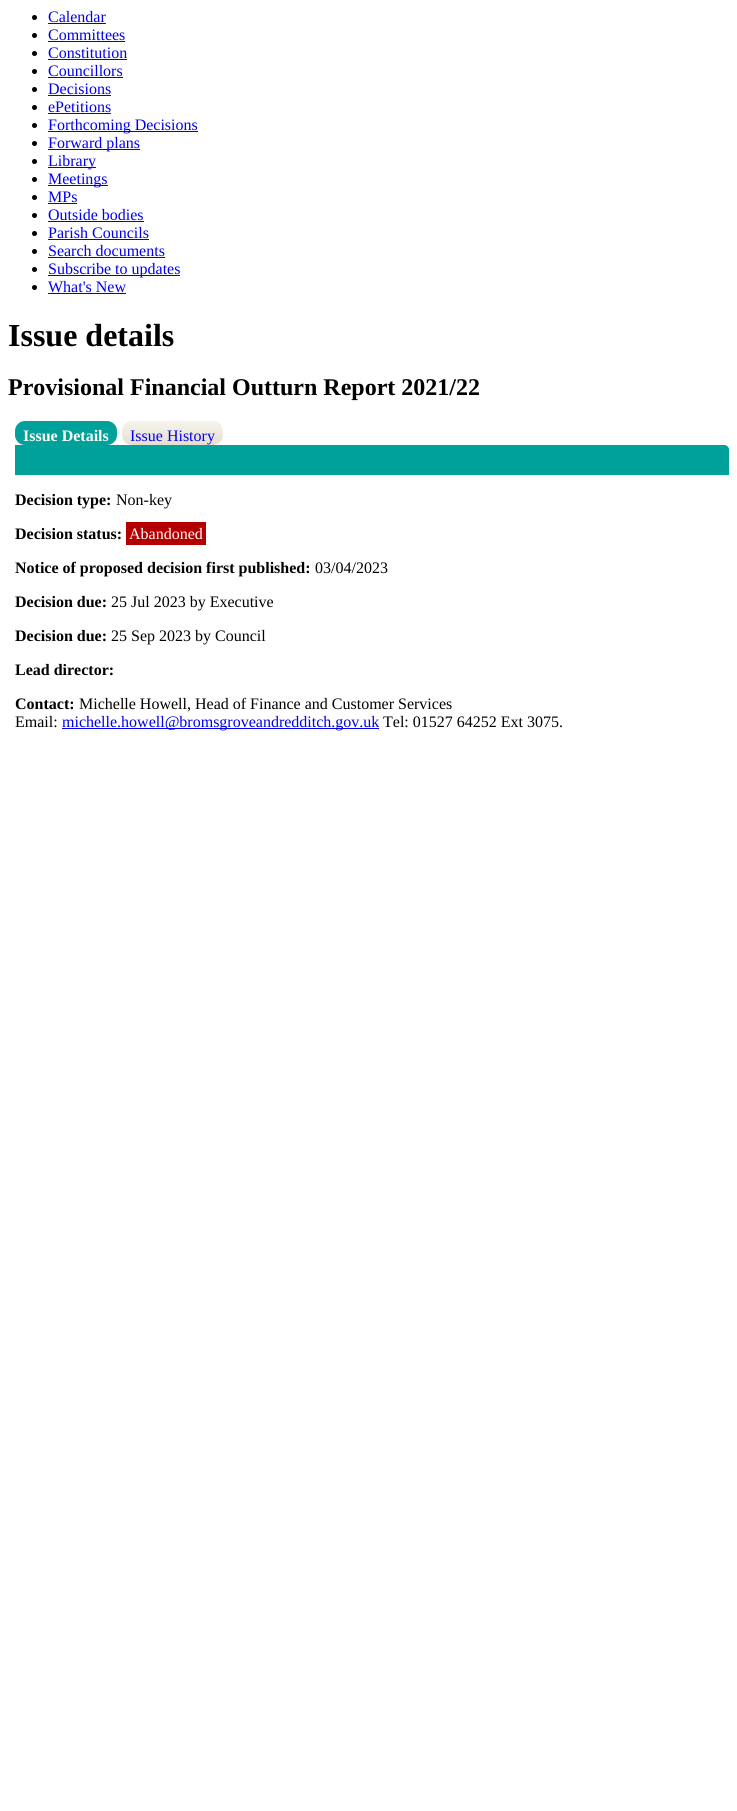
#include <cairo/cairo.h>
#include <math.h>
#include <stddef.h>


static void rounded_rect(cairo_t *cr, double x, double y, double w, double h, double r) {
  cairo_new_sub_path(cr);
  cairo_arc(cr, x + w - r, y + h - r, r, 0, M_PI / 2);
  cairo_arc(cr, x + r, y + h - r, r, M_PI / 2, M_PI);
  cairo_arc(cr, x + r, y + r, r, M_PI, 1.5 * M_PI);
  cairo_arc(cr, x + w - r, y + r, r, 1.5 * M_PI, 2 * M_PI);
  cairo_close_path(cr);
}

static void draw_image(cairo_t *cr, const char *path, double x, double y, double w, double h) {
  cairo_surface_t *image = cairo_image_surface_create_from_png(path);
  cairo_save(cr);
  cairo_set_source_surface(cr, image, x, y);
  cairo_rectangle(cr, x, y, w, h);
  cairo_fill(cr);
  cairo_restore(cr);
  cairo_surface_destroy(image);
}

static void draw(cairo_t *cr) {
  cairo_set_source_rgb(cr, 1, 1, 1);
  cairo_paint(cr);
  cairo_set_source_rgb(cr, 0, 0, 0);
  cairo_arc(cr, 34.5, 17.5, 2.5, 0, 2 * M_PI);
  cairo_fill(cr);
  cairo_set_source_rgb(cr, 0, 0, 238 / 255.0);
  cairo_rectangle(cr, 48, 23, 58, 1);
  cairo_fill(cr);
  cairo_set_source_rgb(cr, 0, 0, 0);
  cairo_arc(cr, 34.5, 35.5, 2.5, 0, 2 * M_PI);
  cairo_fill(cr);
  cairo_set_source_rgb(cr, 0, 0, 238 / 255.0);
  cairo_rectangle(cr, 48, 41, 77, 1);
  cairo_fill(cr);
  cairo_set_source_rgb(cr, 0, 0, 0);
  cairo_arc(cr, 34.5, 53.5, 2.5, 0, 2 * M_PI);
  cairo_fill(cr);
  cairo_set_source_rgb(cr, 0, 0, 238 / 255.0);
  cairo_rectangle(cr, 48, 59, 79, 1);
  cairo_fill(cr);
  cairo_set_source_rgb(cr, 0, 0, 0);
  cairo_arc(cr, 34.5, 71.5, 2.5, 0, 2 * M_PI);
  cairo_fill(cr);
  cairo_set_source_rgb(cr, 0, 0, 238 / 255.0);
  cairo_rectangle(cr, 48, 77, 75, 1);
  cairo_fill(cr);
  cairo_set_source_rgb(cr, 0, 0, 0);
  cairo_arc(cr, 34.5, 89.5, 2.5, 0, 2 * M_PI);
  cairo_fill(cr);
  cairo_set_source_rgb(cr, 0, 0, 238 / 255.0);
  cairo_rectangle(cr, 48, 95, 63, 1);
  cairo_fill(cr);
  cairo_set_source_rgb(cr, 0, 0, 0);
  cairo_arc(cr, 34.5, 107.5, 2.5, 0, 2 * M_PI);
  cairo_fill(cr);
  cairo_set_source_rgb(cr, 0, 0, 238 / 255.0);
  cairo_rectangle(cr, 48, 113, 63, 1);
  cairo_fill(cr);
  cairo_set_source_rgb(cr, 0, 0, 0);
  cairo_arc(cr, 34.5, 125.5, 2.5, 0, 2 * M_PI);
  cairo_fill(cr);
  cairo_set_source_rgb(cr, 0, 0, 238 / 255.0);
  cairo_rectangle(cr, 48, 131, 150, 1);
  cairo_fill(cr);
  cairo_set_source_rgb(cr, 0, 0, 0);
  cairo_arc(cr, 34.5, 143.5, 2.5, 0, 2 * M_PI);
  cairo_fill(cr);
  cairo_set_source_rgb(cr, 0, 0, 238 / 255.0);
  cairo_rectangle(cr, 48, 149, 92, 1);
  cairo_fill(cr);
  cairo_set_source_rgb(cr, 0, 0, 0);
  cairo_arc(cr, 34.5, 161.5, 2.5, 0, 2 * M_PI);
  cairo_fill(cr);
  cairo_set_source_rgb(cr, 0, 0, 238 / 255.0);
  cairo_rectangle(cr, 48, 167, 48, 1);
  cairo_fill(cr);
  cairo_set_source_rgb(cr, 0, 0, 0);
  cairo_arc(cr, 34.5, 179.5, 2.5, 0, 2 * M_PI);
  cairo_fill(cr);
  cairo_set_source_rgb(cr, 0, 0, 238 / 255.0);
  cairo_rectangle(cr, 48, 185, 60, 1);
  cairo_fill(cr);
  cairo_set_source_rgb(cr, 0, 0, 0);
  cairo_arc(cr, 34.5, 197.5, 2.5, 0, 2 * M_PI);
  cairo_fill(cr);
  cairo_set_source_rgb(cr, 0, 0, 238 / 255.0);
  cairo_rectangle(cr, 48, 203, 29, 1);
  cairo_fill(cr);
  cairo_set_source_rgb(cr, 0, 0, 0);
  cairo_arc(cr, 34.5, 215.5, 2.5, 0, 2 * M_PI);
  cairo_fill(cr);
  cairo_set_source_rgb(cr, 0, 0, 238 / 255.0);
  cairo_rectangle(cr, 48, 221, 96, 1);
  cairo_fill(cr);
  cairo_set_source_rgb(cr, 0, 0, 0);
  cairo_arc(cr, 34.5, 233.5, 2.5, 0, 2 * M_PI);
  cairo_fill(cr);
  cairo_set_source_rgb(cr, 0, 0, 238 / 255.0);
  cairo_rectangle(cr, 48, 239, 101, 1);
  cairo_fill(cr);
  cairo_set_source_rgb(cr, 0, 0, 0);
  cairo_arc(cr, 34.5, 251.5, 2.5, 0, 2 * M_PI);
  cairo_fill(cr);
  cairo_set_source_rgb(cr, 0, 0, 238 / 255.0);
  cairo_rectangle(cr, 48, 257, 117, 1);
  cairo_fill(cr);
  cairo_set_source_rgb(cr, 0, 0, 0);
  cairo_arc(cr, 34.5, 269.5, 2.5, 0, 2 * M_PI);
  cairo_fill(cr);
  cairo_set_source_rgb(cr, 0, 0, 238 / 255.0);
  cairo_rectangle(cr, 48, 275, 132, 1);
  cairo_fill(cr);
  cairo_set_source_rgb(cr, 0, 0, 0);
  cairo_arc(cr, 34.5, 287.5, 2.5, 0, 2 * M_PI);
  cairo_fill(cr);
  cairo_set_source_rgb(cr, 0, 0, 238 / 255.0);
  cairo_rectangle(cr, 48, 293, 78, 1);
  cairo_fill(cr);
  cairo_set_source_rgb(cr, 0, 161 / 255.0, 154 / 255.0);
  rounded_rect(cr, 15, 421, 102, 24, 10);
  cairo_fill(cr);
  cairo_set_source_rgb(cr, 243 / 255.0, 243 / 255.0, 243 / 255.0);
  rounded_rect(cr, 122, 421, 101, 24, 10);
  cairo_fill(cr);
  draw_image(cr, "images/1.png", 122, 421, 101, 24);
  cairo_set_source_rgb(cr, 0, 161 / 255.0, 154 / 255.0);
  cairo_new_path(cr);
  cairo_move_to(cr, 15, 445);
  cairo_line_to(cr, 724, 445);
  cairo_curve_to(cr, 727, 445, 729, 447, 729, 450);
  cairo_line_to(cr, 729, 475);
  cairo_line_to(cr, 15, 475);
  cairo_close_path(cr);
  cairo_fill(cr);
  cairo_set_source_rgb(cr, 180 / 255.0, 0, 0);
  cairo_rectangle(cr, 126, 522, 80, 23);
  cairo_fill(cr);
  cairo_set_source_rgb(cr, 0, 0, 238 / 255.0);
  cairo_rectangle(cr, 62, 728, 317, 1);
  cairo_fill(cr);
  cairo_select_font_face(cr, "Liberation Serif", CAIRO_FONT_SLANT_NORMAL, CAIRO_FONT_WEIGHT_NORMAL);
  cairo_set_font_size(cr, 16);
  cairo_move_to(cr, 48, 22);
  cairo_show_text(cr, "Calendar");
  cairo_move_to(cr, 48, 40);
  cairo_show_text(cr, "Committees");
  cairo_move_to(cr, 48, 58);
  cairo_show_text(cr, "Constitution");
  cairo_move_to(cr, 48, 76);
  cairo_show_text(cr, "Councillors");
  cairo_move_to(cr, 48, 94);
  cairo_show_text(cr, "Decisions");
  cairo_move_to(cr, 48, 112);
  cairo_show_text(cr, "ePetitions");
  cairo_move_to(cr, 48, 130);
  cairo_show_text(cr, "Forthcoming Decisions");
  cairo_move_to(cr, 48, 148);
  cairo_show_text(cr, "Forward plans");
  cairo_move_to(cr, 48, 166);
  cairo_show_text(cr, "Library");
  cairo_move_to(cr, 48, 184);
  cairo_show_text(cr, "Meetings");
  cairo_move_to(cr, 48, 202);
  cairo_show_text(cr, "MPs");
  cairo_move_to(cr, 48, 220);
  cairo_show_text(cr, "Outside bodies");
  cairo_move_to(cr, 48, 238);
  cairo_show_text(cr, "Parish Councils");
  cairo_move_to(cr, 48, 256);
  cairo_show_text(cr, "Search documents");
  cairo_move_to(cr, 48, 274);
  cairo_show_text(cr, "Subscribe to updates");
  cairo_move_to(cr, 48, 292);
  cairo_show_text(cr, "What's New");
  cairo_select_font_face(cr, "Liberation Serif", CAIRO_FONT_SLANT_NORMAL, CAIRO_FONT_WEIGHT_BOLD);
  cairo_set_font_size(cr, 32);
  cairo_set_source_rgb(cr, 0, 0, 0);
  cairo_move_to(cr, 8, 346);
  cairo_show_text(cr, "Issue details");
  cairo_set_font_size(cr, 24);
  cairo_move_to(cr, 8, 395);
  cairo_show_text(cr, "Provisional Financial Outturn Report 2021/22");
  cairo_set_font_size(cr, 16);
  cairo_set_source_rgb(cr, 1, 1, 1);
  cairo_move_to(cr, 23, 441);
  cairo_show_text(cr, "Issue Details");
  cairo_select_font_face(cr, "Liberation Serif", CAIRO_FONT_SLANT_NORMAL, CAIRO_FONT_WEIGHT_NORMAL);
  cairo_set_source_rgb(cr, 0, 0, 238 / 255.0);
  cairo_move_to(cr, 130, 441);
  cairo_show_text(cr, "Issue History");
  cairo_select_font_face(cr, "Liberation Serif", CAIRO_FONT_SLANT_NORMAL, CAIRO_FONT_WEIGHT_BOLD);
  cairo_set_source_rgb(cr, 0, 0, 0);
  cairo_move_to(cr, 15, 505);
  cairo_show_text(cr, "Decision type:");
  cairo_select_font_face(cr, "Liberation Serif", CAIRO_FONT_SLANT_NORMAL, CAIRO_FONT_WEIGHT_NORMAL);
  cairo_move_to(cr, 116, 505);
  cairo_show_text(cr, "Non-key");
  cairo_select_font_face(cr, "Liberation Serif", CAIRO_FONT_SLANT_NORMAL, CAIRO_FONT_WEIGHT_BOLD);
  cairo_move_to(cr, 15, 539);
  cairo_show_text(cr, "Decision status:");
  cairo_select_font_face(cr, "Liberation Serif", CAIRO_FONT_SLANT_NORMAL, CAIRO_FONT_WEIGHT_NORMAL);
  cairo_set_source_rgb(cr, 1, 1, 1);
  cairo_move_to(cr, 129, 539);
  cairo_show_text(cr, "Abandoned");
  cairo_select_font_face(cr, "Liberation Serif", CAIRO_FONT_SLANT_NORMAL, CAIRO_FONT_WEIGHT_BOLD);
  cairo_set_source_rgb(cr, 0, 0, 0);
  cairo_move_to(cr, 15, 573);
  cairo_show_text(cr, "Notice of proposed decision first published:");
  cairo_select_font_face(cr, "Liberation Serif", CAIRO_FONT_SLANT_NORMAL, CAIRO_FONT_WEIGHT_NORMAL);
  cairo_move_to(cr, 315, 573);
  cairo_show_text(cr, "03/04/2023");
  cairo_select_font_face(cr, "Liberation Serif", CAIRO_FONT_SLANT_NORMAL, CAIRO_FONT_WEIGHT_BOLD);
  cairo_move_to(cr, 15, 607);
  cairo_show_text(cr, "Decision due:");
  cairo_select_font_face(cr, "Liberation Serif", CAIRO_FONT_SLANT_NORMAL, CAIRO_FONT_WEIGHT_NORMAL);
  cairo_move_to(cr, 111, 607);
  cairo_show_text(cr, "25 Jul 2023 by Executive");
  cairo_select_font_face(cr, "Liberation Serif", CAIRO_FONT_SLANT_NORMAL, CAIRO_FONT_WEIGHT_BOLD);
  cairo_move_to(cr, 15, 641);
  cairo_show_text(cr, "Decision due:");
  cairo_select_font_face(cr, "Liberation Serif", CAIRO_FONT_SLANT_NORMAL, CAIRO_FONT_WEIGHT_NORMAL);
  cairo_move_to(cr, 111, 641);
  cairo_show_text(cr, "25 Sep 2023 by Council");
  cairo_select_font_face(cr, "Liberation Serif", CAIRO_FONT_SLANT_NORMAL, CAIRO_FONT_WEIGHT_BOLD);
  cairo_move_to(cr, 15, 675);
  cairo_show_text(cr, "Lead director:");
  cairo_move_to(cr, 15, 709);
  cairo_show_text(cr, "Contact:");
  cairo_select_font_face(cr, "Liberation Serif", CAIRO_FONT_SLANT_NORMAL, CAIRO_FONT_WEIGHT_NORMAL);
  cairo_move_to(cr, 79, 709);
  cairo_show_text(cr, "Michelle Howell, Head of Finance and Customer Services");
  cairo_move_to(cr, 15, 727);
  cairo_show_text(cr, "Email:");
  cairo_set_source_rgb(cr, 0, 0, 238 / 255.0);
  cairo_move_to(cr, 62, 727);
  cairo_show_text(cr, "michelle.howell@bromsgroveandredditch.gov.uk");
  cairo_set_source_rgb(cr, 0, 0, 0);
  cairo_move_to(cr, 383, 727);
  cairo_show_text(cr, "Tel: 01527 64252 Ext 3075.");
}

int main(void) {
  cairo_surface_t *surface = cairo_image_surface_create(CAIRO_FORMAT_RGB24, 737, 1811);
  cairo_t *cr = cairo_create(surface);
  cairo_font_options_t *options = cairo_font_options_create();
  cairo_font_options_set_hint_metrics(options, CAIRO_HINT_METRICS_OFF);
  cairo_font_options_set_hint_style(options, CAIRO_HINT_STYLE_NONE);
  cairo_set_font_options(cr, options);
  cairo_set_miter_limit(cr, 4);
  draw(cr);
  cairo_surface_write_to_png(surface, "out.png");
  cairo_font_options_destroy(options);
  cairo_destroy(cr);
  cairo_surface_destroy(surface);
  return 0;
}
